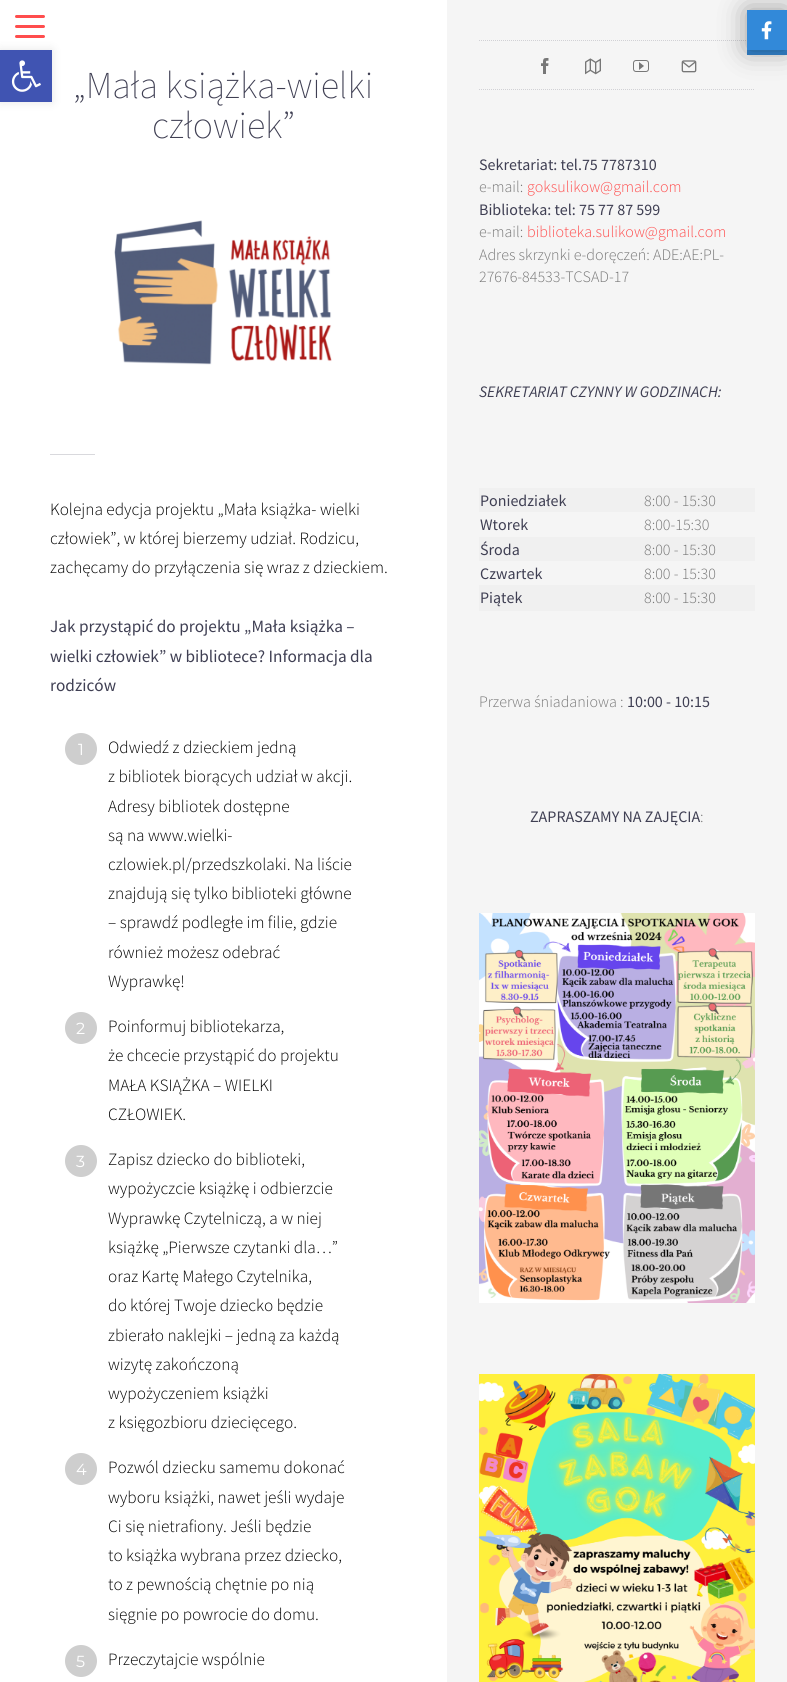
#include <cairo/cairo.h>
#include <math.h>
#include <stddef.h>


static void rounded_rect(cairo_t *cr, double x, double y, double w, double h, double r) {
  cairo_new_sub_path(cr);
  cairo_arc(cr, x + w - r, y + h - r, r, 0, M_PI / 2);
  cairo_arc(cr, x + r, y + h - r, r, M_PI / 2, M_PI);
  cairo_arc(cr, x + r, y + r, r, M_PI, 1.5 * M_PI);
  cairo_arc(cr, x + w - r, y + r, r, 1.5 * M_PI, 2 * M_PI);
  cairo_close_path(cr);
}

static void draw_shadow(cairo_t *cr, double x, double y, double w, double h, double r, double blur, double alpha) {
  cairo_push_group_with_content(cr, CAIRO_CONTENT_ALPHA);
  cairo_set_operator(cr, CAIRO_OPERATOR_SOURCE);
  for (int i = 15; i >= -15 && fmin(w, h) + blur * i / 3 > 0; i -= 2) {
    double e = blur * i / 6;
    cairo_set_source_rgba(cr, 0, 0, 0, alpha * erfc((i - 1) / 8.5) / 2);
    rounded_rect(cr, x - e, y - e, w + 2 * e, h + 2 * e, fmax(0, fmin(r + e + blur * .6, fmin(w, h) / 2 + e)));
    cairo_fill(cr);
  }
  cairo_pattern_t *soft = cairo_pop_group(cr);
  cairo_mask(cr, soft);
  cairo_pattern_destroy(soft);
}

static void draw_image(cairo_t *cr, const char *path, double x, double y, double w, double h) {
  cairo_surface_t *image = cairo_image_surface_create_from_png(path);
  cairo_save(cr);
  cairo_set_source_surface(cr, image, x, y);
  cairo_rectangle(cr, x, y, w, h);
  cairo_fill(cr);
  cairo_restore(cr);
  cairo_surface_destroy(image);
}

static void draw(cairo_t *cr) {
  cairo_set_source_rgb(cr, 1, 1, 1);
  cairo_paint(cr);
  cairo_set_source_rgb(cr, 1, 77 / 255.0, 77 / 255.0);
  rounded_rect(cr, 15, 25, 30, 3, 1.5);
  cairo_fill(cr);
  rounded_rect(cr, 15, 15, 30, 3, 1.5);
  cairo_fill(cr);
  rounded_rect(cr, 15, 35, 30, 3, 1.5);
  cairo_fill(cr);
  cairo_set_source_rgb(cr, 245 / 255.0, 245 / 255.0, 245 / 255.0);
  cairo_rectangle(cr, 447, 0, 340, 1682);
  cairo_fill(cr);
  cairo_set_source_rgb(cr, 52 / 255.0, 135 / 255.0, 210 / 255.0);
  cairo_rectangle(cr, 747, 50, 40, 5);
  cairo_fill(cr);
  cairo_new_path(cr);
  cairo_move_to(cr, 479, 40.5);
  cairo_line_to(cr, 755, 40.5);
  cairo_set_source_rgb(cr, 209 / 255.0, 209 / 255.0, 213 / 255.0);
  cairo_set_line_width(cr, 1);
  cairo_set_dash(cr, (double[]){1, 1}, 2, 0);
  cairo_stroke(cr);
  cairo_new_path(cr);
  cairo_move_to(cr, 479, 89.5);
  cairo_line_to(cr, 755, 89.5);
  cairo_stroke(cr);
  cairo_set_source_rgb(cr, 0, 0, 0);
  draw_shadow(cr, 747, 10, 40, 40, 0, 14, 0.38);
  cairo_set_source_rgb(cr, 50 / 255.0, 137 / 255.0, 217 / 255.0);
  cairo_rectangle(cr, 747, 10, 40, 40);
  cairo_fill(cr);
  draw_image(cr, "images/1.png", 761, 21, 11, 19);
  cairo_set_source_rgb(cr, 0, 0, 0);
  draw_shadow(cr, 0, 50, 52, 52, 0, 5, 0.1);
  cairo_set_source_rgb(cr, 64 / 255.0, 84 / 255.0, 178 / 255.0);
  cairo_rectangle(cr, 0, 50, 52, 52);
  cairo_fill(cr);
  draw_image(cr, "images/2.png", 11, 60, 30, 32);
  draw_image(cr, "images/3.png", 114, 220, 218, 145);
  cairo_set_source_rgb(cr, 217 / 255.0, 217 / 255.0, 221 / 255.0);
  cairo_rectangle(cr, 50, 454, 45, 1);
  cairo_fill(cr);
  cairo_set_source_rgb(cr, 206 / 255.0, 206 / 255.0, 206 / 255.0);
  cairo_arc(cr, 81, 749, 16, 0, 2 * M_PI);
  cairo_fill(cr);
  cairo_arc(cr, 81, 1028, 16, 0, 2 * M_PI);
  cairo_fill(cr);
  cairo_arc(cr, 81, 1161, 16, 0, 2 * M_PI);
  cairo_fill(cr);
  cairo_arc(cr, 81, 1469, 16, 0, 2 * M_PI);
  cairo_fill(cr);
  cairo_arc(cr, 81, 1661, 16, 0, 2 * M_PI);
  cairo_fill(cr);
  draw_image(cr, "images/4.png", 541, 58, 8, 16);
  draw_image(cr, "images/5.png", 585, 58, 16, 17);
  draw_image(cr, "images/6.png", 633, 60, 16, 12);
  draw_image(cr, "images/7.png", 681, 60, 16, 13);
  cairo_set_source_rgb(cr, 240 / 255.0, 240 / 255.0, 240 / 255.0);
  cairo_rectangle(cr, 479, 585, 276, 26);
  cairo_fill(cr);
  cairo_rectangle(cr, 479, 488, 276, 24);
  cairo_fill(cr);
  cairo_rectangle(cr, 479, 537, 276, 24);
  cairo_fill(cr);
  draw_image(cr, "images/8.png", 479, 913, 276, 390);
  draw_image(cr, "images/9.png", 479, 1374, 276, 308);
  cairo_select_font_face(cr, "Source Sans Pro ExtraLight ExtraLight", CAIRO_FONT_SLANT_NORMAL, CAIRO_FONT_WEIGHT_NORMAL);
  cairo_set_font_size(cr, 38);
  cairo_set_source_rgb(cr, 63 / 255.0, 63 / 255.0, 83 / 255.0);
  cairo_move_to(cr, 73, 98);
  cairo_show_text(cr, "„Mała książka-wielki");
  cairo_move_to(cr, 152, 138);
  cairo_show_text(cr, "człowiek”");
  cairo_select_font_face(cr, "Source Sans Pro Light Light", CAIRO_FONT_SLANT_NORMAL, CAIRO_FONT_WEIGHT_NORMAL);
  cairo_set_font_size(cr, 17.25);
  cairo_set_source_rgb(cr, 0, 0, 0);
  cairo_move_to(cr, 50, 515);
  cairo_show_text(cr, "Kolejna edycja projektu „Mała książka- wielki");
  cairo_move_to(cr, 50, 544);
  cairo_show_text(cr, "człowiek”, w której bierzemy udział. Rodzicu,");
  cairo_move_to(cr, 50, 573);
  cairo_show_text(cr, "zachęcamy do przyłączenia się wraz z dzieckiem.");
  cairo_select_font_face(cr, "Source Sans Pro", CAIRO_FONT_SLANT_NORMAL, CAIRO_FONT_WEIGHT_NORMAL);
  cairo_set_source_rgb(cr, 63 / 255.0, 63 / 255.0, 83 / 255.0);
  cairo_move_to(cr, 50, 632);
  cairo_show_text(cr, "Jak przystąpić do projektu „Mała książka –");
  cairo_move_to(cr, 50, 662);
  cairo_show_text(cr, "wielki człowiek” w bibliotece? Informacja dla");
  cairo_move_to(cr, 50, 691);
  cairo_show_text(cr, "rodziców");
  cairo_select_font_face(cr, "Montserrat Thin", CAIRO_FONT_SLANT_NORMAL, CAIRO_FONT_WEIGHT_NORMAL);
  cairo_set_font_size(cr, 16);
  cairo_set_source_rgb(cr, 1, 1, 1);
  cairo_move_to(cr, 78, 755);
  cairo_show_text(cr, "1");
  cairo_select_font_face(cr, "Source Sans Pro Light Light", CAIRO_FONT_SLANT_NORMAL, CAIRO_FONT_WEIGHT_NORMAL);
  cairo_set_font_size(cr, 17.25);
  cairo_set_source_rgb(cr, 0, 0, 0);
  cairo_move_to(cr, 108, 753);
  cairo_show_text(cr, "Odwiedź z dzieckiem jedną");
  cairo_move_to(cr, 108, 782);
  cairo_show_text(cr, "z bibliotek biorących udział w akcji.");
  cairo_move_to(cr, 108, 812);
  cairo_show_text(cr, "Adresy bibliotek dostępne");
  cairo_move_to(cr, 108, 841);
  cairo_show_text(cr, "są na www.wielki-");
  cairo_move_to(cr, 108, 870);
  cairo_show_text(cr, "czlowiek.pl/przedszkolaki. Na liście");
  cairo_move_to(cr, 108, 899);
  cairo_show_text(cr, "znajdują się tylko biblioteki główne");
  cairo_move_to(cr, 108, 928);
  cairo_show_text(cr, "– sprawdź podległe im filie, gdzie");
  cairo_move_to(cr, 108, 958);
  cairo_show_text(cr, "również możesz odebrać");
  cairo_move_to(cr, 108, 987);
  cairo_show_text(cr, "Wyprawkę!");
  cairo_select_font_face(cr, "Montserrat Thin", CAIRO_FONT_SLANT_NORMAL, CAIRO_FONT_WEIGHT_NORMAL);
  cairo_set_font_size(cr, 16);
  cairo_set_source_rgb(cr, 1, 1, 1);
  cairo_move_to(cr, 76, 1034);
  cairo_show_text(cr, "2");
  cairo_select_font_face(cr, "Source Sans Pro Light Light", CAIRO_FONT_SLANT_NORMAL, CAIRO_FONT_WEIGHT_NORMAL);
  cairo_set_font_size(cr, 17.25);
  cairo_set_source_rgb(cr, 0, 0, 0);
  cairo_move_to(cr, 108, 1032);
  cairo_show_text(cr, "Poinformuj bibliotekarza,");
  cairo_move_to(cr, 108, 1061);
  cairo_show_text(cr, "że chcecie przystąpić do projektu");
  cairo_move_to(cr, 108, 1091);
  cairo_show_text(cr, "MAŁA KSIĄŻKA – WIELKI");
  cairo_move_to(cr, 108, 1120);
  cairo_show_text(cr, "CZŁOWIEK.");
  cairo_select_font_face(cr, "Montserrat Thin", CAIRO_FONT_SLANT_NORMAL, CAIRO_FONT_WEIGHT_NORMAL);
  cairo_set_font_size(cr, 16);
  cairo_set_source_rgb(cr, 1, 1, 1);
  cairo_move_to(cr, 76, 1167);
  cairo_show_text(cr, "3");
  cairo_select_font_face(cr, "Source Sans Pro Light Light", CAIRO_FONT_SLANT_NORMAL, CAIRO_FONT_WEIGHT_NORMAL);
  cairo_set_font_size(cr, 17.25);
  cairo_set_source_rgb(cr, 0, 0, 0);
  cairo_move_to(cr, 108, 1165);
  cairo_show_text(cr, "Zapisz dziecko do biblioteki,");
  cairo_move_to(cr, 108, 1194);
  cairo_show_text(cr, "wypożyczcie książkę i odbierzcie");
  cairo_move_to(cr, 108, 1224);
  cairo_show_text(cr, "Wyprawkę Czytelniczą, a w niej");
  cairo_move_to(cr, 108, 1253);
  cairo_show_text(cr, "książkę „Pierwsze czytanki dla…”");
  cairo_move_to(cr, 108, 1282);
  cairo_show_text(cr, "oraz Kartę Małego Czytelnika,");
  cairo_move_to(cr, 108, 1311);
  cairo_show_text(cr, "do której Twoje dziecko będzie");
  cairo_move_to(cr, 108, 1341);
  cairo_show_text(cr, "zbierało naklejki – jedną za każdą");
  cairo_move_to(cr, 108, 1370);
  cairo_show_text(cr, "wizytę zakończoną");
  cairo_move_to(cr, 108, 1399);
  cairo_show_text(cr, "wypożyczeniem książki");
  cairo_move_to(cr, 108, 1428);
  cairo_show_text(cr, "z księgozbioru dziecięcego.");
  cairo_select_font_face(cr, "Montserrat Thin", CAIRO_FONT_SLANT_NORMAL, CAIRO_FONT_WEIGHT_NORMAL);
  cairo_set_font_size(cr, 16);
  cairo_set_source_rgb(cr, 1, 1, 1);
  cairo_move_to(cr, 76, 1475);
  cairo_show_text(cr, "4");
  cairo_select_font_face(cr, "Source Sans Pro Light Light", CAIRO_FONT_SLANT_NORMAL, CAIRO_FONT_WEIGHT_NORMAL);
  cairo_set_font_size(cr, 17.25);
  cairo_set_source_rgb(cr, 0, 0, 0);
  cairo_move_to(cr, 108, 1473);
  cairo_show_text(cr, "Pozwól dziecku samemu dokonać");
  cairo_move_to(cr, 108, 1503);
  cairo_show_text(cr, "wyboru książki, nawet jeśli wydaje");
  cairo_move_to(cr, 108, 1532);
  cairo_show_text(cr, "Ci się nietrafiony. Jeśli będzie");
  cairo_move_to(cr, 108, 1561);
  cairo_show_text(cr, "to książka wybrana przez dziecko,");
  cairo_move_to(cr, 108, 1590);
  cairo_show_text(cr, "to z pewnością chętnie po nią");
  cairo_move_to(cr, 108, 1620);
  cairo_show_text(cr, "sięgnie po powrocie do domu.");
  cairo_select_font_face(cr, "Montserrat Thin", CAIRO_FONT_SLANT_NORMAL, CAIRO_FONT_WEIGHT_NORMAL);
  cairo_set_font_size(cr, 16);
  cairo_set_source_rgb(cr, 1, 1, 1);
  cairo_move_to(cr, 76, 1667);
  cairo_show_text(cr, "5");
  cairo_select_font_face(cr, "Source Sans Pro Light Light", CAIRO_FONT_SLANT_NORMAL, CAIRO_FONT_WEIGHT_NORMAL);
  cairo_set_font_size(cr, 17.25);
  cairo_set_source_rgb(cr, 0, 0, 0);
  cairo_move_to(cr, 108, 1665);
  cairo_show_text(cr, "Przeczytajcie wspólnie");
  cairo_select_font_face(cr, "Source Sans Pro", CAIRO_FONT_SLANT_NORMAL, CAIRO_FONT_WEIGHT_NORMAL);
  cairo_set_font_size(cr, 16);
  cairo_set_source_rgb(cr, 63 / 255.0, 63 / 255.0, 83 / 255.0);
  cairo_move_to(cr, 479, 170);
  cairo_show_text(cr, "Sekretariat: tel.75 7787310");
  cairo_select_font_face(cr, "Source Sans Pro Light Light", CAIRO_FONT_SLANT_NORMAL, CAIRO_FONT_WEIGHT_NORMAL);
  cairo_set_source_rgb(cr, 119 / 255.0, 119 / 255.0, 119 / 255.0);
  cairo_move_to(cr, 479, 192);
  cairo_show_text(cr, "e-mail:");
  cairo_set_source_rgb(cr, 1, 77 / 255.0, 77 / 255.0);
  cairo_move_to(cr, 527, 192);
  cairo_show_text(cr, "goksulikow@gmail.com");
  cairo_select_font_face(cr, "Source Sans Pro", CAIRO_FONT_SLANT_NORMAL, CAIRO_FONT_WEIGHT_NORMAL);
  cairo_set_source_rgb(cr, 63 / 255.0, 63 / 255.0, 83 / 255.0);
  cairo_move_to(cr, 479, 215);
  cairo_show_text(cr, "Biblioteka: tel: 75 77 87 599");
  cairo_select_font_face(cr, "Source Sans Pro Light Light", CAIRO_FONT_SLANT_NORMAL, CAIRO_FONT_WEIGHT_NORMAL);
  cairo_set_source_rgb(cr, 119 / 255.0, 119 / 255.0, 119 / 255.0);
  cairo_move_to(cr, 479, 237);
  cairo_show_text(cr, "e-mail:");
  cairo_set_source_rgb(cr, 1, 77 / 255.0, 77 / 255.0);
  cairo_move_to(cr, 527, 237);
  cairo_show_text(cr, "biblioteka.sulikow@gmail.com");
  cairo_set_source_rgb(cr, 119 / 255.0, 119 / 255.0, 119 / 255.0);
  cairo_move_to(cr, 479, 260);
  cairo_show_text(cr, "Adres skrzynki e-doręczeń: ADE:AE:PL-");
  cairo_move_to(cr, 479, 282);
  cairo_show_text(cr, "27676-84533-TCSAD-17");
  cairo_select_font_face(cr, "Source Sans Pro", CAIRO_FONT_SLANT_ITALIC, CAIRO_FONT_WEIGHT_NORMAL);
  cairo_set_source_rgb(cr, 63 / 255.0, 63 / 255.0, 83 / 255.0);
  cairo_move_to(cr, 479, 397);
  cairo_show_text(cr, "SEKRETARIAT CZYNNY W GODZINACH:");
  cairo_select_font_face(cr, "Source Sans Pro", CAIRO_FONT_SLANT_NORMAL, CAIRO_FONT_WEIGHT_NORMAL);
  cairo_move_to(cr, 480, 506);
  cairo_show_text(cr, "Poniedziałek");
  cairo_select_font_face(cr, "Source Sans Pro Light Light", CAIRO_FONT_SLANT_NORMAL, CAIRO_FONT_WEIGHT_NORMAL);
  cairo_set_source_rgb(cr, 119 / 255.0, 119 / 255.0, 119 / 255.0);
  cairo_move_to(cr, 644, 506);
  cairo_show_text(cr, "8:00 - 15:30");
  cairo_select_font_face(cr, "Source Sans Pro", CAIRO_FONT_SLANT_NORMAL, CAIRO_FONT_WEIGHT_NORMAL);
  cairo_set_source_rgb(cr, 63 / 255.0, 63 / 255.0, 83 / 255.0);
  cairo_move_to(cr, 480, 530);
  cairo_show_text(cr, "Wtorek");
  cairo_select_font_face(cr, "Source Sans Pro Light Light", CAIRO_FONT_SLANT_NORMAL, CAIRO_FONT_WEIGHT_NORMAL);
  cairo_set_source_rgb(cr, 119 / 255.0, 119 / 255.0, 119 / 255.0);
  cairo_move_to(cr, 644, 530);
  cairo_show_text(cr, "8:00-15:30");
  cairo_select_font_face(cr, "Source Sans Pro", CAIRO_FONT_SLANT_NORMAL, CAIRO_FONT_WEIGHT_NORMAL);
  cairo_set_source_rgb(cr, 63 / 255.0, 63 / 255.0, 83 / 255.0);
  cairo_move_to(cr, 480, 555);
  cairo_show_text(cr, "Środa");
  cairo_select_font_face(cr, "Source Sans Pro Light Light", CAIRO_FONT_SLANT_NORMAL, CAIRO_FONT_WEIGHT_NORMAL);
  cairo_set_source_rgb(cr, 119 / 255.0, 119 / 255.0, 119 / 255.0);
  cairo_move_to(cr, 644, 555);
  cairo_show_text(cr, "8:00 - 15:30");
  cairo_select_font_face(cr, "Source Sans Pro", CAIRO_FONT_SLANT_NORMAL, CAIRO_FONT_WEIGHT_NORMAL);
  cairo_set_source_rgb(cr, 63 / 255.0, 63 / 255.0, 83 / 255.0);
  cairo_move_to(cr, 480, 579);
  cairo_show_text(cr, "Czwartek");
  cairo_select_font_face(cr, "Source Sans Pro Light Light", CAIRO_FONT_SLANT_NORMAL, CAIRO_FONT_WEIGHT_NORMAL);
  cairo_set_source_rgb(cr, 119 / 255.0, 119 / 255.0, 119 / 255.0);
  cairo_move_to(cr, 644, 579);
  cairo_show_text(cr, "8:00 - 15:30");
  cairo_select_font_face(cr, "Source Sans Pro", CAIRO_FONT_SLANT_NORMAL, CAIRO_FONT_WEIGHT_NORMAL);
  cairo_set_source_rgb(cr, 63 / 255.0, 63 / 255.0, 83 / 255.0);
  cairo_move_to(cr, 480, 603);
  cairo_show_text(cr, "Piątek");
  cairo_select_font_face(cr, "Source Sans Pro Light Light", CAIRO_FONT_SLANT_NORMAL, CAIRO_FONT_WEIGHT_NORMAL);
  cairo_set_source_rgb(cr, 119 / 255.0, 119 / 255.0, 119 / 255.0);
  cairo_move_to(cr, 644, 603);
  cairo_show_text(cr, "8:00 - 15:30");
  cairo_move_to(cr, 479, 707);
  cairo_show_text(cr, "Przerwa śniadaniowa :");
  cairo_select_font_face(cr, "Source Sans Pro", CAIRO_FONT_SLANT_NORMAL, CAIRO_FONT_WEIGHT_NORMAL);
  cairo_set_source_rgb(cr, 63 / 255.0, 63 / 255.0, 83 / 255.0);
  cairo_move_to(cr, 627, 707);
  cairo_show_text(cr, "10:00 - 10:15");
  cairo_move_to(cr, 530, 822);
  cairo_show_text(cr, "ZAPRASZAMY NA ZAJĘCIA");
  cairo_select_font_face(cr, "Source Sans Pro Light Light", CAIRO_FONT_SLANT_NORMAL, CAIRO_FONT_WEIGHT_NORMAL);
  cairo_set_source_rgb(cr, 119 / 255.0, 119 / 255.0, 119 / 255.0);
  cairo_move_to(cr, 700, 822);
  cairo_show_text(cr, ":");
}

int main(void) {
  cairo_surface_t *surface = cairo_image_surface_create(CAIRO_FORMAT_RGB24, 787, 1682);
  cairo_t *cr = cairo_create(surface);
  cairo_font_options_t *options = cairo_font_options_create();
  cairo_font_options_set_hint_metrics(options, CAIRO_HINT_METRICS_OFF);
  cairo_font_options_set_hint_style(options, CAIRO_HINT_STYLE_NONE);
  cairo_set_font_options(cr, options);
  cairo_set_miter_limit(cr, 4);
  draw(cr);
  cairo_surface_write_to_png(surface, "out.png");
  cairo_font_options_destroy(options);
  cairo_destroy(cr);
  cairo_surface_destroy(surface);
  return 0;
}
